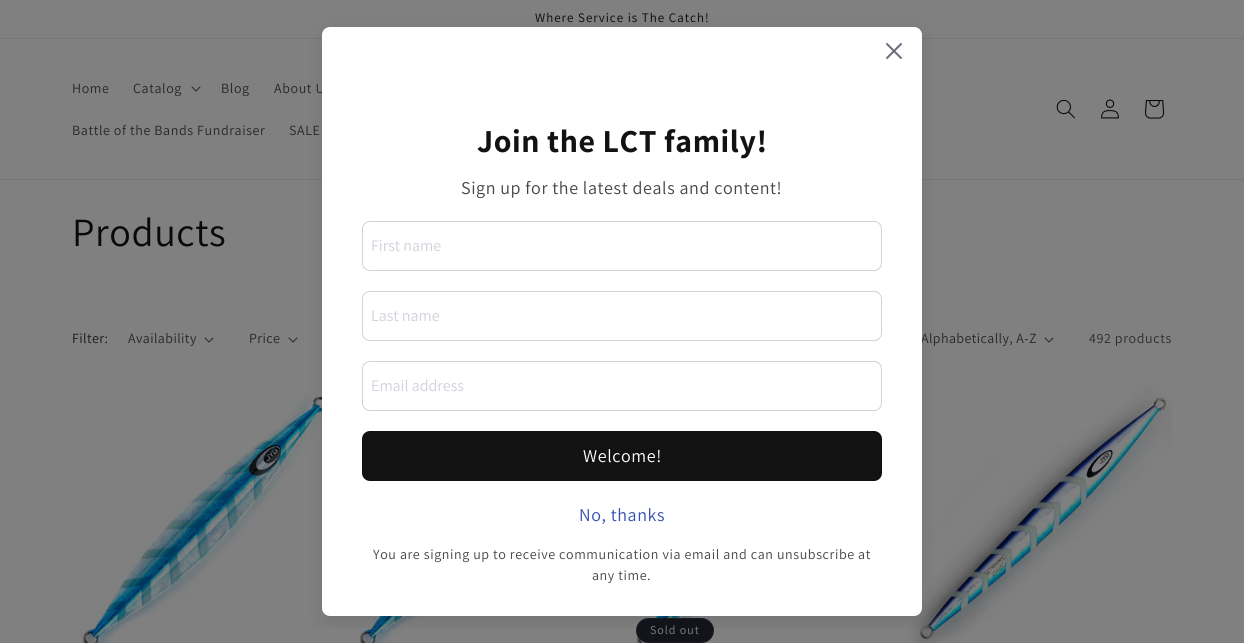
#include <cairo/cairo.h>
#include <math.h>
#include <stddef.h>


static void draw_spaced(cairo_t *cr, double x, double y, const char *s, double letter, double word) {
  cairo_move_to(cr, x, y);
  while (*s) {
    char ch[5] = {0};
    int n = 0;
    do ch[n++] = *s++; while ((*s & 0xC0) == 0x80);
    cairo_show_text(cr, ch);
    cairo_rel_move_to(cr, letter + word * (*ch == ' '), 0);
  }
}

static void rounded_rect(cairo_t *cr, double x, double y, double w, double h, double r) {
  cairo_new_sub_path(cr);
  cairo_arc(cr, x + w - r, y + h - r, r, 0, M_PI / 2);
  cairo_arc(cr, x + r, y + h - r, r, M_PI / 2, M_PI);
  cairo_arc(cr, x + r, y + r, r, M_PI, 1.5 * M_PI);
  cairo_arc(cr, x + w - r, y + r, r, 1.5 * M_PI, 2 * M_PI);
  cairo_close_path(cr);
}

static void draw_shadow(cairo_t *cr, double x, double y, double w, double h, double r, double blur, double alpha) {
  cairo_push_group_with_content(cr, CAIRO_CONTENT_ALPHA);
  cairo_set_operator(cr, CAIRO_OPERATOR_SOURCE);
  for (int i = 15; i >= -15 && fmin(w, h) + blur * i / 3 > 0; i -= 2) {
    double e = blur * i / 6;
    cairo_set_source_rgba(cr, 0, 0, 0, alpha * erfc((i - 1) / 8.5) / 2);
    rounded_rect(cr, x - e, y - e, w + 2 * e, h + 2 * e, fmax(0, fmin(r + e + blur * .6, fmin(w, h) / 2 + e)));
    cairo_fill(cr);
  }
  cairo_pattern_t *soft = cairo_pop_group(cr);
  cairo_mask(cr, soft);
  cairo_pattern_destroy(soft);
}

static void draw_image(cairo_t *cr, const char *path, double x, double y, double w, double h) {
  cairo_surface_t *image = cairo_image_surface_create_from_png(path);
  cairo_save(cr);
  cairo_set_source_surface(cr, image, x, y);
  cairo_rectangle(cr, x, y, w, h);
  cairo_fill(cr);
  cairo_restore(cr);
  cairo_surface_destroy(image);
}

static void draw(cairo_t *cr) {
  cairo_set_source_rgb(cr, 128 / 255.0, 128 / 255.0, 128 / 255.0);
  cairo_paint(cr);
  cairo_set_source_rgb(cr, 118 / 255.0, 118 / 255.0, 118 / 255.0);
  cairo_rectangle(cr, 0, 38, 1244, 1);
  cairo_fill(cr);
  cairo_rectangle(cr, 0, 179, 1244, 1);
  cairo_fill(cr);
  draw_image(cr, "images/1.png", 191, 86, 10, 6);
  draw_image(cr, "images/2.png", 1056, 99, 19, 20);
  draw_image(cr, "images/3.png", 1101, 99, 18, 20);
  draw_image(cr, "images/4.png", 1145, 100, 20, 19);
  draw_image(cr, "images/1.png", 288, 337, 10, 6);
  draw_image(cr, "images/6.png", 72, 385, 269, 258);
  draw_image(cr, "images/7.png", 349, 616, 269, 27);
  draw_image(cr, "images/7.png", 626, 616, 269, 27);
  cairo_set_source_rgb(cr, 18 / 255.0, 20 / 255.0, 26 / 255.0);
  rounded_rect(cr, 636, 618, 78, 25, 12.5);
  cairo_fill(cr);
  rounded_rect(cr, 636.5, 618.5, 77, 24, 12);
  cairo_set_source_rgba(cr, 128 / 255.0, 128 / 255.0, 128 / 255.0, 0.1);
  cairo_set_line_width(cr, 1);
  cairo_stroke(cr);
  draw_image(cr, "images/8.png", 903, 385, 269, 258);
  cairo_save(cr);
  cairo_rectangle(cr, 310, 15, 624, 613);
  cairo_clip(cr);
  cairo_set_source_rgb(cr, 18 / 255.0, 17 / 255.0, 39 / 255.0);
  draw_shadow(cr, 322, 35, 600, 589, 8, 10, 0.1);
  cairo_restore(cr);
  draw_image(cr, "images/1.png", 204, 337, 10, 6);
  draw_image(cr, "images/1.png", 1044, 337, 10, 6);
  cairo_select_font_face(cr, "Assistant", CAIRO_FONT_SLANT_NORMAL, CAIRO_FONT_WEIGHT_NORMAL);
  cairo_set_font_size(cr, 13);
  cairo_set_source_rgb(cr, 9 / 255.0, 9 / 255.0, 9 / 255.0);
  draw_spaced(cr, 535, 22, "Where Service is The Catch!", 1, 0);
  cairo_set_font_size(cr, 14);
  cairo_set_source_rgb(cr, 39 / 255.0, 39 / 255.0, 39 / 255.0);
  draw_spaced(cr, 72, 93, "Home", 0.6, 0);
  draw_spaced(cr, 133, 93, "Catalog", 0.6, 0);
  draw_spaced(cr, 221, 93, "Blog", 0.6, 0);
  draw_spaced(cr, 274, 93, "About U", 0.6, 0);
  draw_spaced(cr, 72, 135, "Battle of the Bands Fundraiser", 0.6, 0);
  draw_spaced(cr, 289, 135, "SALE", 0.6, 0);
  cairo_set_font_size(cr, 40);
  cairo_set_source_rgb(cr, 9 / 255.0, 9 / 255.0, 9 / 255.0);
  draw_spaced(cr, 72, 246, "Products", 0.6, 0);
  cairo_set_font_size(cr, 14);
  cairo_set_source_rgb(cr, 27 / 255.0, 27 / 255.0, 27 / 255.0);
  draw_spaced(cr, 72, 343, "Filter:", 0.4, 0);
  cairo_set_source_rgb(cr, 39 / 255.0, 39 / 255.0, 39 / 255.0);
  draw_spaced(cr, 128, 343, "Availability", 0.4, 0);
  draw_spaced(cr, 249, 343, "Price", 0.4, 0);
  draw_spaced(cr, 921, 343, "Alphabetically, A-Z", 0.4, 0);
  cairo_set_source_rgb(cr, 1, 1, 1);
  rounded_rect(cr, 322, 27, 600, 589, 8);
  cairo_fill(cr);
  draw_image(cr, "images/5.png", 886, 43, 16, 16);
  cairo_set_source_rgb(cr, 18 / 255.0, 18 / 255.0, 18 / 255.0);
  rounded_rect(cr, 362, 431, 520, 50, 8);
  cairo_fill(cr);
  cairo_set_font_size(cr, 18);
  cairo_set_source_rgb(cr, 1, 1, 1);
  draw_spaced(cr, 583, 462, "Welcome!", 0.6, 0);
  rounded_rect(cr, 362.5, 361.5, 519, 49, 7.5);
  cairo_set_source_rgb(cr, 209 / 255.0, 209 / 255.0, 219 / 255.0);
  cairo_stroke(cr);
  cairo_set_font_size(cr, 16);
  cairo_move_to(cr, 371, 391);
  cairo_show_text(cr, "Email address");
  rounded_rect(cr, 362.5, 291.5, 519, 49, 7.5);
  cairo_stroke(cr);
  cairo_move_to(cr, 371, 321);
  cairo_show_text(cr, "Last name");
  rounded_rect(cr, 362.5, 221.5, 519, 49, 7.5);
  cairo_stroke(cr);
  cairo_move_to(cr, 371, 251);
  cairo_show_text(cr, "First name");
  cairo_set_font_size(cr, 14);
  cairo_set_source_rgb(cr, 69 / 255.0, 69 / 255.0, 69 / 255.0);
  draw_spaced(cr, 592, 580, "any time.", 0.6, 0);
  draw_spaced(cr, 373, 559, "You are signing up to receive communication via email and can unsubscribe at", 0.6, 0);
  cairo_set_font_size(cr, 18);
  cairo_set_source_rgb(cr, 51 / 255.0, 79 / 255.0, 180 / 255.0);
  draw_spaced(cr, 579, 521, "No, thanks", 0.6, 0);
  cairo_set_source_rgb(cr, 69 / 255.0, 69 / 255.0, 69 / 255.0);
  draw_spaced(cr, 461, 194, "Sign up for the latest deals and content!", 0.6, 0);
  cairo_select_font_face(cr, "Assistant", CAIRO_FONT_SLANT_NORMAL, CAIRO_FONT_WEIGHT_BOLD);
  cairo_set_font_size(cr, 32);
  cairo_set_source_rgb(cr, 18 / 255.0, 18 / 255.0, 18 / 255.0);
  draw_spaced(cr, 477, 152, "Join the LCT family!", 0.6, 0);
  cairo_select_font_face(cr, "Assistant", CAIRO_FONT_SLANT_NORMAL, CAIRO_FONT_WEIGHT_NORMAL);
  cairo_set_font_size(cr, 14);
  cairo_set_source_rgb(cr, 45 / 255.0, 45 / 255.0, 45 / 255.0);
  draw_spaced(cr, 1089, 343, "492 products", 0.6, 0);
  cairo_set_font_size(cr, 12);
  cairo_set_source_rgb(cr, 128 / 255.0, 128 / 255.0, 128 / 255.0);
  draw_spaced(cr, 650, 634, "Sold out", 1, 0);
}

int main(void) {
  cairo_surface_t *surface = cairo_image_surface_create(CAIRO_FORMAT_RGB24, 1244, 643);
  cairo_t *cr = cairo_create(surface);
  cairo_font_options_t *options = cairo_font_options_create();
  cairo_font_options_set_hint_metrics(options, CAIRO_HINT_METRICS_OFF);
  cairo_font_options_set_hint_style(options, CAIRO_HINT_STYLE_NONE);
  cairo_set_font_options(cr, options);
  cairo_set_miter_limit(cr, 4);
  draw(cr);
  cairo_surface_write_to_png(surface, "out.png");
  cairo_font_options_destroy(options);
  cairo_destroy(cr);
  cairo_surface_destroy(surface);
  return 0;
}
